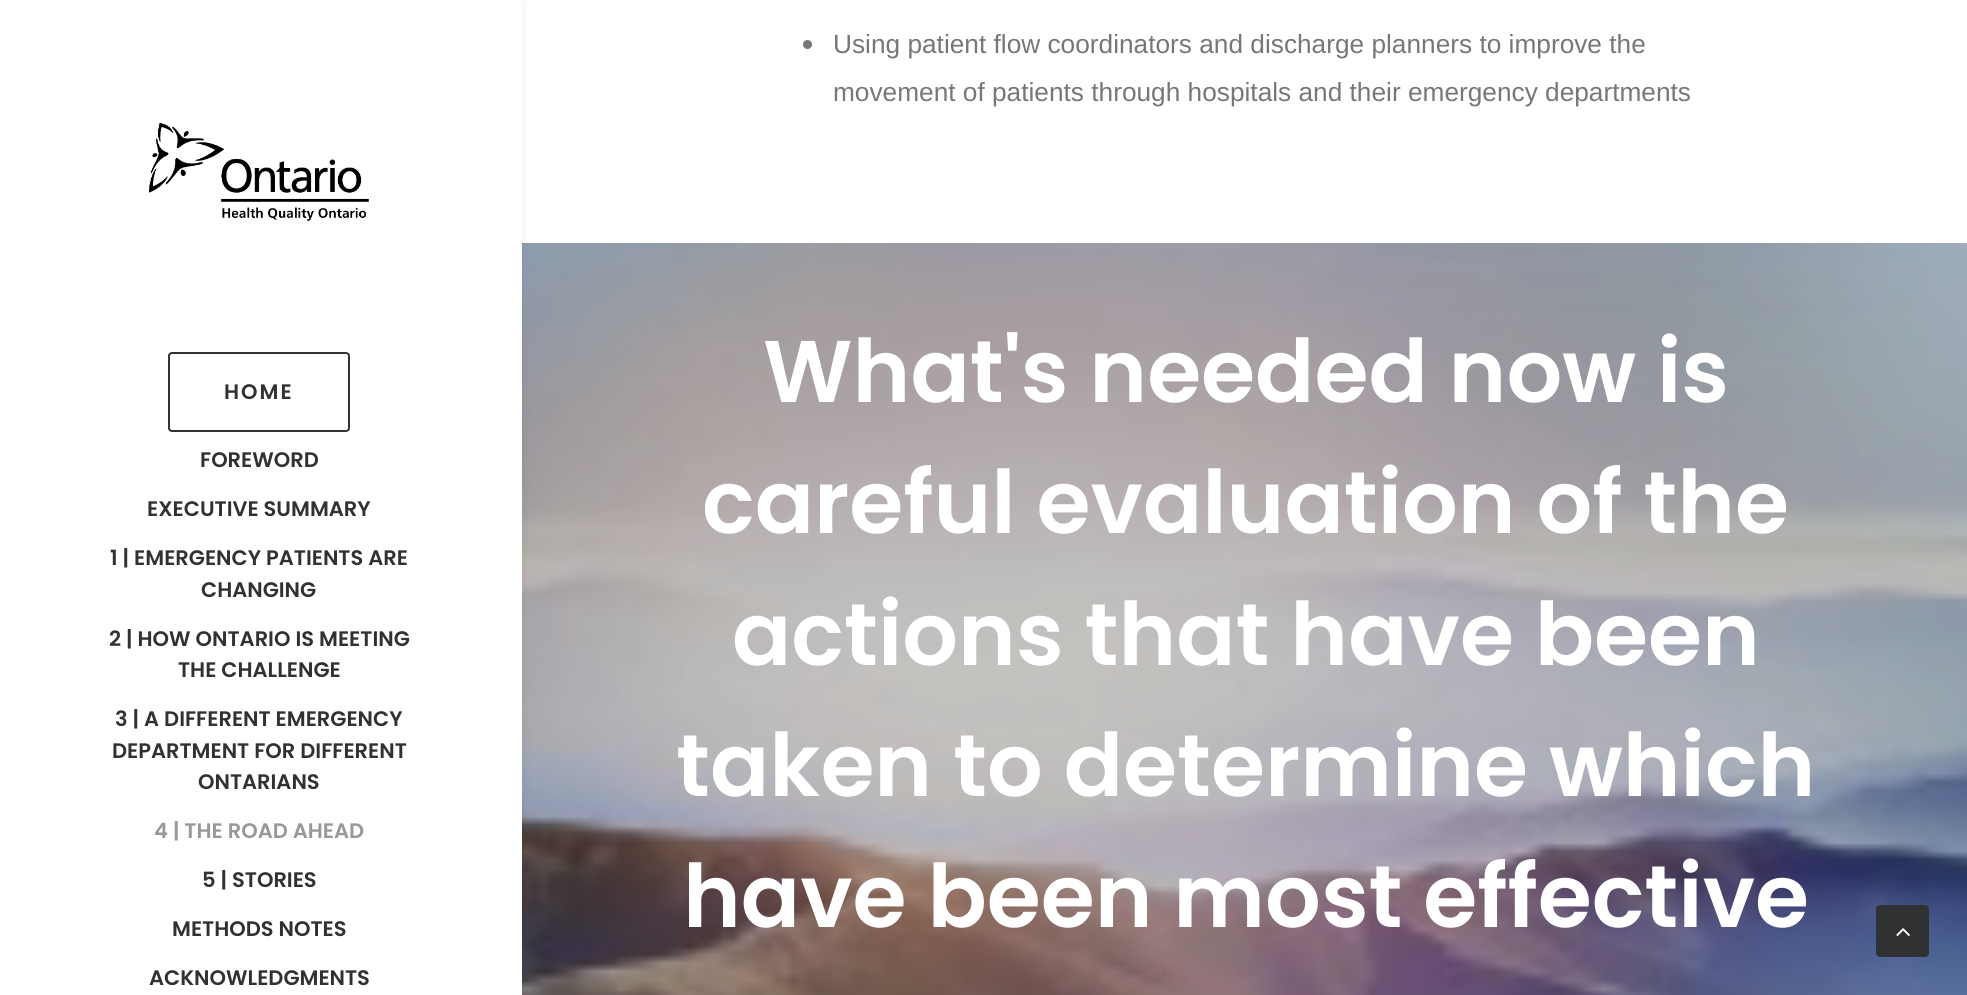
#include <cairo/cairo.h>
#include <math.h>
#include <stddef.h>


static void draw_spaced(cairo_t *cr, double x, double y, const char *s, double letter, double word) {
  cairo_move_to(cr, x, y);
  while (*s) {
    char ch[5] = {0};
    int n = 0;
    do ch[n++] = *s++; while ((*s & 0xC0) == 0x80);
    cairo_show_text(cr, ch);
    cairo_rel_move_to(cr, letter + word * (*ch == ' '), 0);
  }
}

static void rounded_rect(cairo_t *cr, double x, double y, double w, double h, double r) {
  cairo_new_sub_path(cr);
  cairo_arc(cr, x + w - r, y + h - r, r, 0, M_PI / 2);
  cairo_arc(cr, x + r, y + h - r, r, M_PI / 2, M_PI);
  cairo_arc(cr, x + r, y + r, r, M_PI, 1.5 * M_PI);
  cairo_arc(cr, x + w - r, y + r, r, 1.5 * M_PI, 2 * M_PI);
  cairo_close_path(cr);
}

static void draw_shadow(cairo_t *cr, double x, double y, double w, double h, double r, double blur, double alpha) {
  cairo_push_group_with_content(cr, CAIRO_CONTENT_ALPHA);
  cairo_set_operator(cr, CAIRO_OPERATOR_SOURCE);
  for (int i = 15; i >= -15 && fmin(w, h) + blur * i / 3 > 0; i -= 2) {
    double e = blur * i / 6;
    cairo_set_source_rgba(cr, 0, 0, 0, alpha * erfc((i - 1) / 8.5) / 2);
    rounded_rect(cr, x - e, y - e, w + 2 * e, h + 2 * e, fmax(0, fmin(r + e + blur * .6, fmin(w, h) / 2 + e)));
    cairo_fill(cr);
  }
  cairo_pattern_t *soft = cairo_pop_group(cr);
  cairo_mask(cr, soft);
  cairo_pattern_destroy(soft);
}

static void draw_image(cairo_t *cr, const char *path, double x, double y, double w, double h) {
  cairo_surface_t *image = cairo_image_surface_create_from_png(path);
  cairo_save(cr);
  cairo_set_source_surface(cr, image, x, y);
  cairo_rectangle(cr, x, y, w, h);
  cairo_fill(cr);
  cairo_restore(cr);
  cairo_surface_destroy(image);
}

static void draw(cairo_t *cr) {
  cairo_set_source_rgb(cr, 1, 1, 1);
  cairo_paint(cr);
  draw_image(cr, "images/2.png", 522, 243, 1445, 752);
  cairo_set_source_rgb(cr, 0, 0, 0);
  draw_shadow(cr, -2, 2, 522, 992, 0, 6, 0.1);
  cairo_set_source_rgb(cr, 1, 1, 1);
  cairo_rectangle(cr, 0, 0, 522, 995);
  cairo_fill(cr);
  draw_image(cr, "images/1.png", 149, 122, 220, 99);
  rounded_rect(cr, 169, 353, 180, 78, 3);
  cairo_set_source_rgb(cr, 48 / 255.0, 49 / 255.0, 51 / 255.0);
  cairo_stroke(cr);
  cairo_set_source_rgb(cr, 119 / 255.0, 119 / 255.0, 119 / 255.0);
  cairo_arc(cr, 807.5, 44.5, 4.5, 0, 2 * M_PI);
  cairo_fill(cr);
  cairo_set_source_rgb(cr, 48 / 255.0, 49 / 255.0, 51 / 255.0);
  rounded_rect(cr, 1877, 906, 51, 50, 3);
  cairo_fill_preserve(cr);
  cairo_stroke(cr);
  draw_image(cr, "images/3.png", 1896, 928, 14, 8);
  cairo_select_font_face(cr, "Poppins SemiBold", CAIRO_FONT_SLANT_NORMAL, CAIRO_FONT_WEIGHT_NORMAL);
  cairo_set_font_size(cr, 21);
  draw_spaced(cr, 224, 399, "HOME", 2, 0);
  cairo_move_to(cr, 200, 467);
  cairo_show_text(cr, "FOREWORD");
  cairo_move_to(cr, 147, 516);
  cairo_show_text(cr, "EXECUTIVE SUMMARY");
  cairo_move_to(cr, 110, 565);
  cairo_show_text(cr, "1 | EMERGENCY PATIENTS ARE");
  cairo_move_to(cr, 201, 597);
  cairo_show_text(cr, "CHANGING");
  cairo_move_to(cr, 109, 646);
  cairo_show_text(cr, "2 | HOW ONTARIO IS MEETING");
  cairo_move_to(cr, 178, 677);
  cairo_show_text(cr, "THE CHALLENGE");
  cairo_move_to(cr, 115, 726);
  cairo_show_text(cr, "3 | A DIFFERENT EMERGENCY");
  cairo_move_to(cr, 112, 758);
  cairo_show_text(cr, "DEPARTMENT FOR DIFFERENT");
  cairo_move_to(cr, 198, 789);
  cairo_show_text(cr, "ONTARIANS");
  cairo_set_source_rgb(cr, 152 / 255.0, 152 / 255.0, 153 / 255.0);
  cairo_move_to(cr, 154, 838);
  cairo_show_text(cr, "4 | THE ROAD AHEAD");
  cairo_set_source_rgb(cr, 48 / 255.0, 49 / 255.0, 51 / 255.0);
  cairo_move_to(cr, 202, 887);
  cairo_show_text(cr, "5 | STORIES");
  cairo_move_to(cr, 172, 936);
  cairo_show_text(cr, "METHODS NOTES");
  cairo_move_to(cr, 149, 985);
  cairo_show_text(cr, "ACKNOWLEDGMENTS");
  cairo_select_font_face(cr, "Liberation Sans", CAIRO_FONT_SLANT_NORMAL, CAIRO_FONT_WEIGHT_NORMAL);
  cairo_set_font_size(cr, 26.25);
  cairo_set_source_rgb(cr, 119 / 255.0, 119 / 255.0, 119 / 255.0);
  cairo_move_to(cr, 833, 53);
  cairo_show_text(cr, "Using patient flow coordinators and discharge planners to improve the");
  cairo_move_to(cr, 833, 101);
  cairo_show_text(cr, "movement of patients through hospitals and their emergency departments");
  cairo_select_font_face(cr, "Poppins SemiBold", CAIRO_FONT_SLANT_NORMAL, CAIRO_FONT_WEIGHT_NORMAL);
  cairo_set_font_size(cr, 87.5);
  cairo_set_source_rgb(cr, 1, 1, 1);
  cairo_move_to(cr, 763, 402);
  cairo_show_text(cr, "What's needed now is");
  cairo_move_to(cr, 702, 533);
  cairo_show_text(cr, "careful evaluation of the");
  cairo_move_to(cr, 732, 665);
  cairo_show_text(cr, "actions that have been");
  cairo_move_to(cr, 676, 796);
  cairo_show_text(cr, "taken to determine which");
  cairo_move_to(cr, 683, 927);
  cairo_show_text(cr, "have been most effective");
}

int main(void) {
  cairo_surface_t *surface = cairo_image_surface_create(CAIRO_FORMAT_RGB24, 1967, 995);
  cairo_t *cr = cairo_create(surface);
  cairo_font_options_t *options = cairo_font_options_create();
  cairo_font_options_set_hint_metrics(options, CAIRO_HINT_METRICS_OFF);
  cairo_font_options_set_hint_style(options, CAIRO_HINT_STYLE_NONE);
  cairo_set_font_options(cr, options);
  cairo_set_miter_limit(cr, 4);
  draw(cr);
  cairo_surface_write_to_png(surface, "out.png");
  cairo_font_options_destroy(options);
  cairo_destroy(cr);
  cairo_surface_destroy(surface);
  return 0;
}
